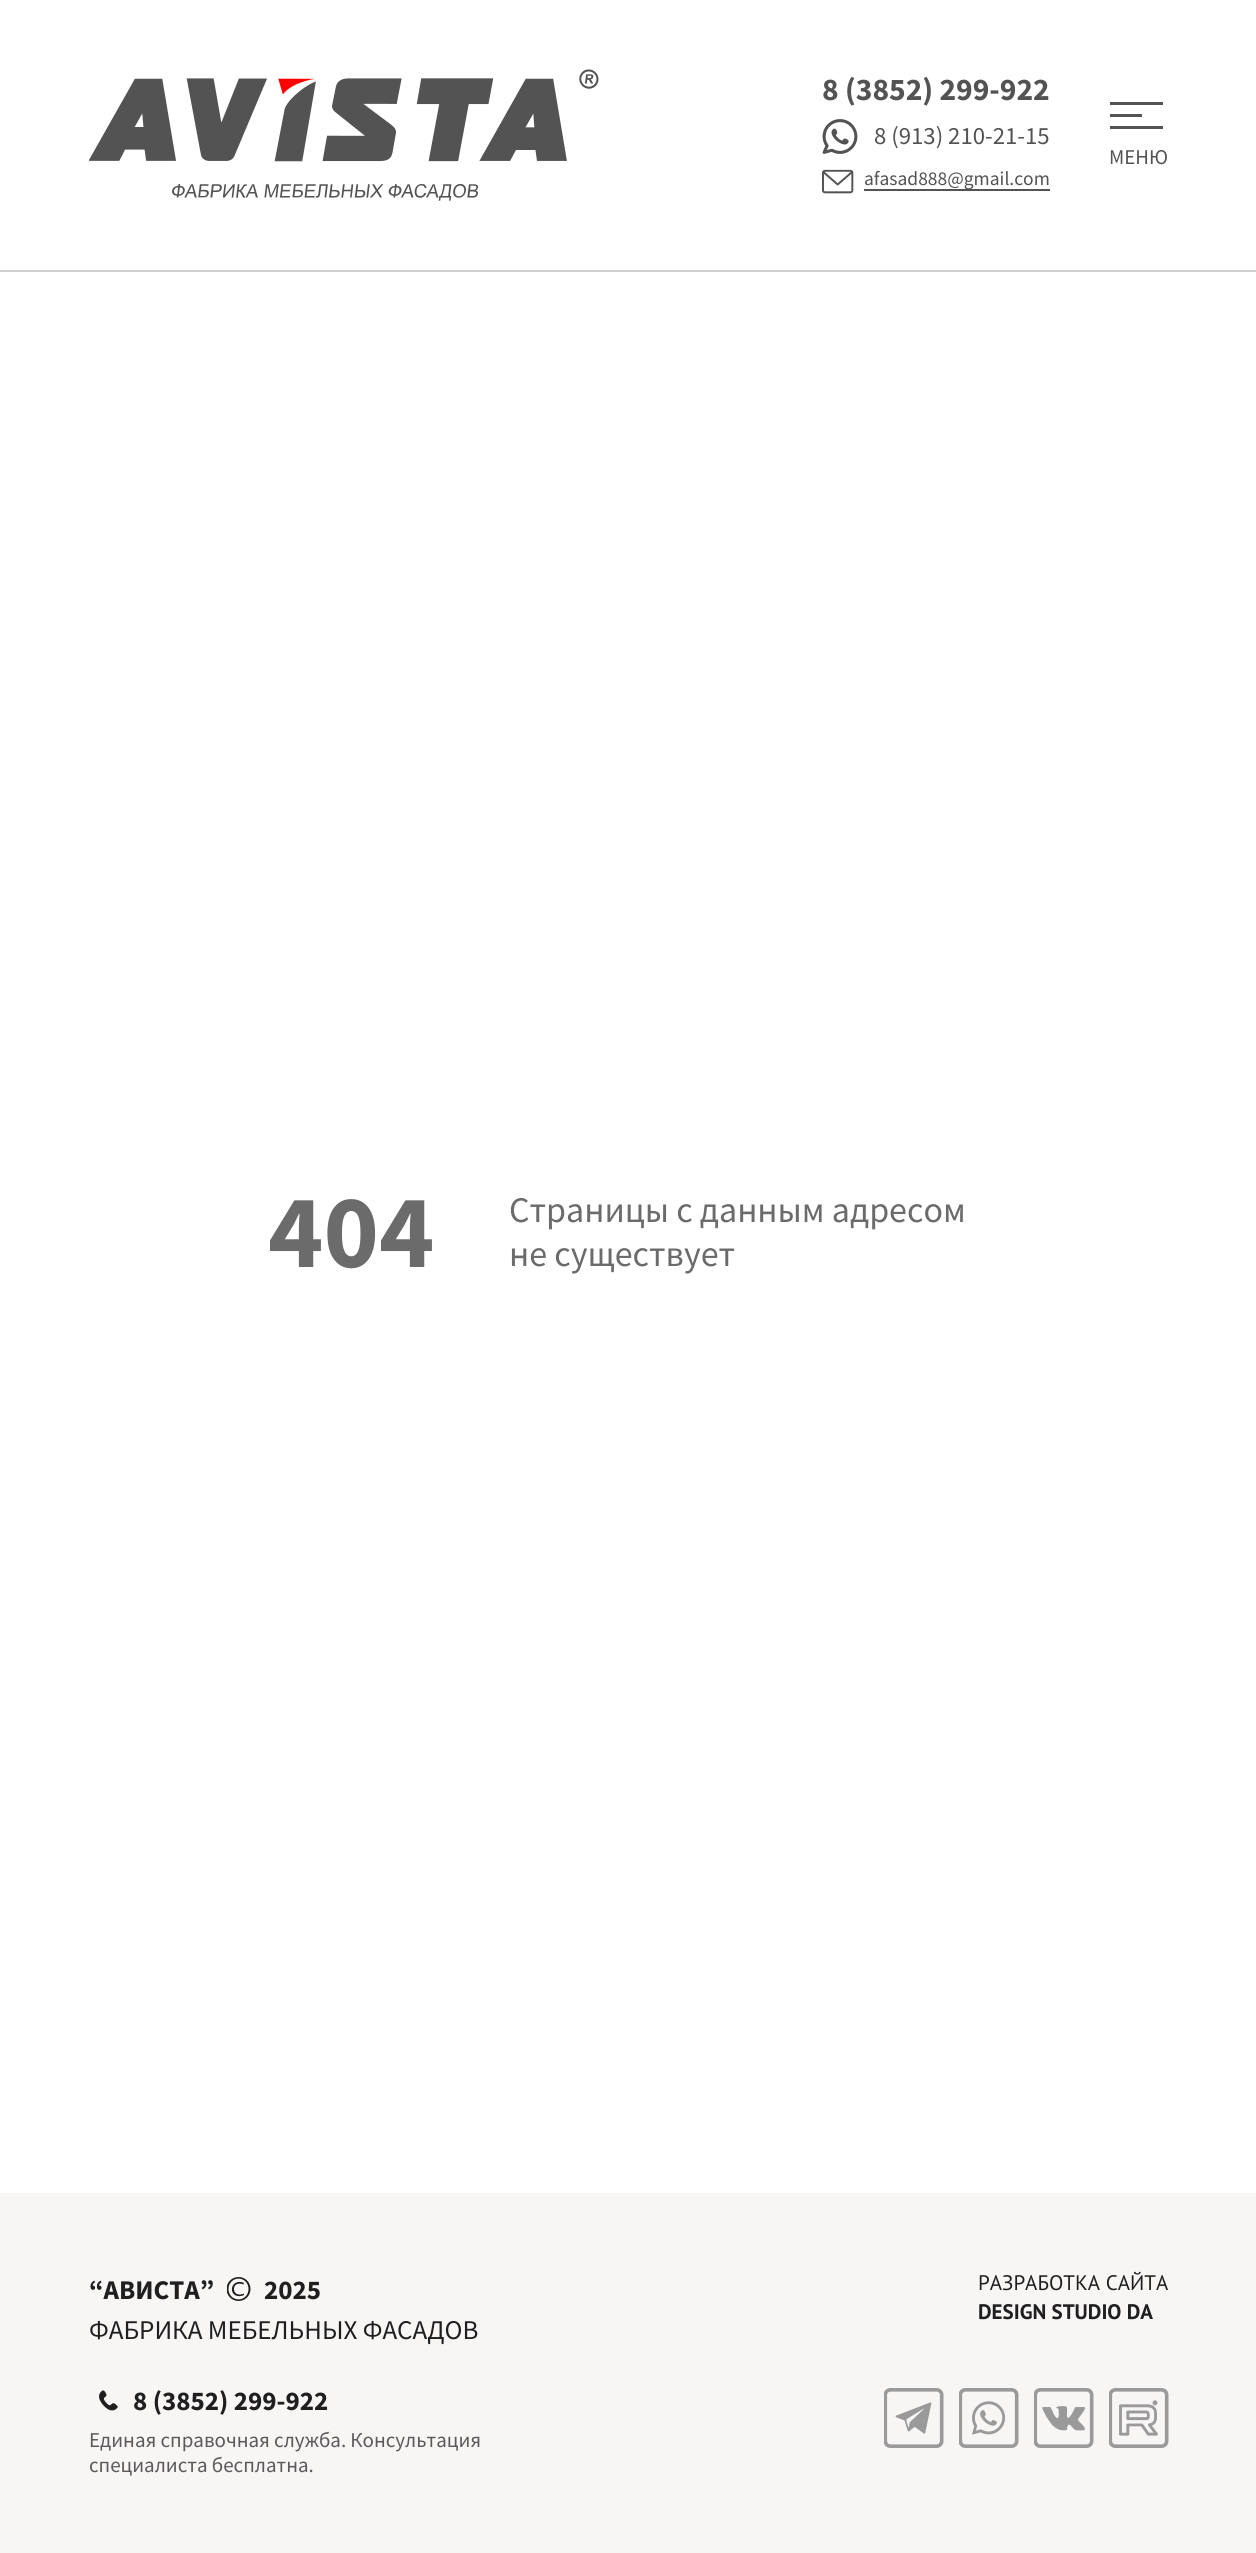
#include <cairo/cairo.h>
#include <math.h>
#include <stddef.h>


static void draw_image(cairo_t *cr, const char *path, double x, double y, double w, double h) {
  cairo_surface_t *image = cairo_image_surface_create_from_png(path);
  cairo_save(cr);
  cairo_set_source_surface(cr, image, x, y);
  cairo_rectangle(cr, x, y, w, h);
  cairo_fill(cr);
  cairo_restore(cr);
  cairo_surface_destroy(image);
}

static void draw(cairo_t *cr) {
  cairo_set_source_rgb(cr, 1, 1, 1);
  cairo_paint(cr);
  cairo_set_source_rgb(cr, 208 / 255.0, 208 / 255.0, 208 / 255.0);
  cairo_rectangle(cr, 0, 270, 1256, 2);
  cairo_fill(cr);
  draw_image(cr, "images/1.png", 89, 69, 510, 132);
  draw_image(cr, "images/2.png", 822, 119, 36, 35);
  draw_image(cr, "images/3.png", 822, 169, 32, 25);
  cairo_set_source_rgb(cr, 83 / 255.0, 83 / 255.0, 83 / 255.0);
  cairo_rectangle(cr, 864, 189, 186, 2);
  cairo_fill(cr);
  cairo_rectangle(cr, 1110, 126, 53, 3);
  cairo_fill(cr);
  cairo_rectangle(cr, 1110, 102, 53, 3);
  cairo_fill(cr);
  cairo_rectangle(cr, 1110, 114, 32, 3);
  cairo_fill(cr);
  cairo_set_source_rgb(cr, 248 / 255.0, 245 / 255.0, 245 / 255.0);
  cairo_rectangle(cr, 0, 2193, 1256, 360);
  cairo_fill(cr);
  draw_image(cr, "images/4.png", 227, 2277, 24, 24);
  draw_image(cr, "images/5.png", 99, 2390, 19, 21);
  draw_image(cr, "images/6.png", 884, 2388, 60, 60);
  draw_image(cr, "images/7.png", 959, 2388, 60, 60);
  draw_image(cr, "images/8.png", 1034, 2388, 60, 60);
  draw_image(cr, "images/9.png", 1109, 2388, 60, 60);
  cairo_select_font_face(cr, "Source Sans Pro", CAIRO_FONT_SLANT_NORMAL, CAIRO_FONT_WEIGHT_BOLD);
  cairo_set_font_size(cr, 31.5);
  cairo_set_source_rgb(cr, 83 / 255.0, 83 / 255.0, 83 / 255.0);
  cairo_move_to(cr, 822, 100);
  cairo_show_text(cr, "8 (3852) 299-922");
  cairo_select_font_face(cr, "Source Sans Pro", CAIRO_FONT_SLANT_NORMAL, CAIRO_FONT_WEIGHT_NORMAL);
  cairo_set_font_size(cr, 24.75);
  cairo_move_to(cr, 874, 144);
  cairo_show_text(cr, "8 (913) 210-21-15");
  cairo_set_font_size(cr, 19.5);
  cairo_move_to(cr, 864, 185);
  cairo_show_text(cr, "afasad888@gmail.com");
  cairo_set_font_size(cr, 21);
  cairo_move_to(cr, 1109, 164);
  cairo_show_text(cr, "МЕНЮ");
  cairo_select_font_face(cr, "Source Sans Pro", CAIRO_FONT_SLANT_NORMAL, CAIRO_FONT_WEIGHT_BOLD);
  cairo_set_font_size(cr, 105);
  cairo_set_source_rgb(cr, 108 / 255.0, 107 / 255.0, 107 / 255.0);
  cairo_move_to(cr, 268, 1267);
  cairo_show_text(cr, "404");
  cairo_select_font_face(cr, "Source Sans Pro", CAIRO_FONT_SLANT_NORMAL, CAIRO_FONT_WEIGHT_NORMAL);
  cairo_set_font_size(cr, 36);
  cairo_move_to(cr, 509, 1222);
  cairo_show_text(cr, "Страницы с данным адресом");
  cairo_move_to(cr, 509, 1266);
  cairo_show_text(cr, "не существует");
  cairo_select_font_face(cr, "Source Sans Pro", CAIRO_FONT_SLANT_NORMAL, CAIRO_FONT_WEIGHT_BOLD);
  cairo_set_font_size(cr, 27);
  cairo_set_source_rgb(cr, 31 / 255.0, 31 / 255.0, 31 / 255.0);
  cairo_move_to(cr, 89, 2299);
  cairo_show_text(cr, "“АВИСТА”");
  cairo_move_to(cr, 264, 2299);
  cairo_show_text(cr, "2025");
  cairo_select_font_face(cr, "Source Sans Pro", CAIRO_FONT_SLANT_NORMAL, CAIRO_FONT_WEIGHT_NORMAL);
  cairo_move_to(cr, 89, 2339);
  cairo_show_text(cr, "ФАБРИКА МЕБЕЛЬНЫХ ФАСАДОВ");
  cairo_select_font_face(cr, "Source Sans Pro", CAIRO_FONT_SLANT_NORMAL, CAIRO_FONT_WEIGHT_BOLD);
  cairo_move_to(cr, 133, 2410);
  cairo_show_text(cr, "8 (3852) 299-922");
  cairo_select_font_face(cr, "Source Sans Pro", CAIRO_FONT_SLANT_NORMAL, CAIRO_FONT_WEIGHT_NORMAL);
  cairo_set_font_size(cr, 21);
  cairo_set_source_rgb(cr, 90 / 255.0, 90 / 255.0, 90 / 255.0);
  cairo_move_to(cr, 89, 2447);
  cairo_show_text(cr, "Единая справочная служба. Консультация");
  cairo_move_to(cr, 89, 2472);
  cairo_show_text(cr, "специалиста бесплатна.");
  cairo_select_font_face(cr, "PT Sans", CAIRO_FONT_SLANT_NORMAL, CAIRO_FONT_WEIGHT_NORMAL);
  cairo_set_source_rgb(cr, 31 / 255.0, 31 / 255.0, 31 / 255.0);
  cairo_move_to(cr, 978, 2290);
  cairo_show_text(cr, "РАЗРАБОТКА САЙТА");
  cairo_select_font_face(cr, "PT Sans", CAIRO_FONT_SLANT_NORMAL, CAIRO_FONT_WEIGHT_BOLD);
  cairo_move_to(cr, 978, 2319);
  cairo_show_text(cr, "DESIGN STUDIO DA");
}

int main(void) {
  cairo_surface_t *surface = cairo_image_surface_create(CAIRO_FORMAT_RGB24, 1256, 2553);
  cairo_t *cr = cairo_create(surface);
  cairo_font_options_t *options = cairo_font_options_create();
  cairo_font_options_set_hint_metrics(options, CAIRO_HINT_METRICS_OFF);
  cairo_font_options_set_hint_style(options, CAIRO_HINT_STYLE_NONE);
  cairo_set_font_options(cr, options);
  cairo_set_miter_limit(cr, 4);
  draw(cr);
  cairo_surface_write_to_png(surface, "out.png");
  cairo_font_options_destroy(options);
  cairo_destroy(cr);
  cairo_surface_destroy(surface);
  return 0;
}
